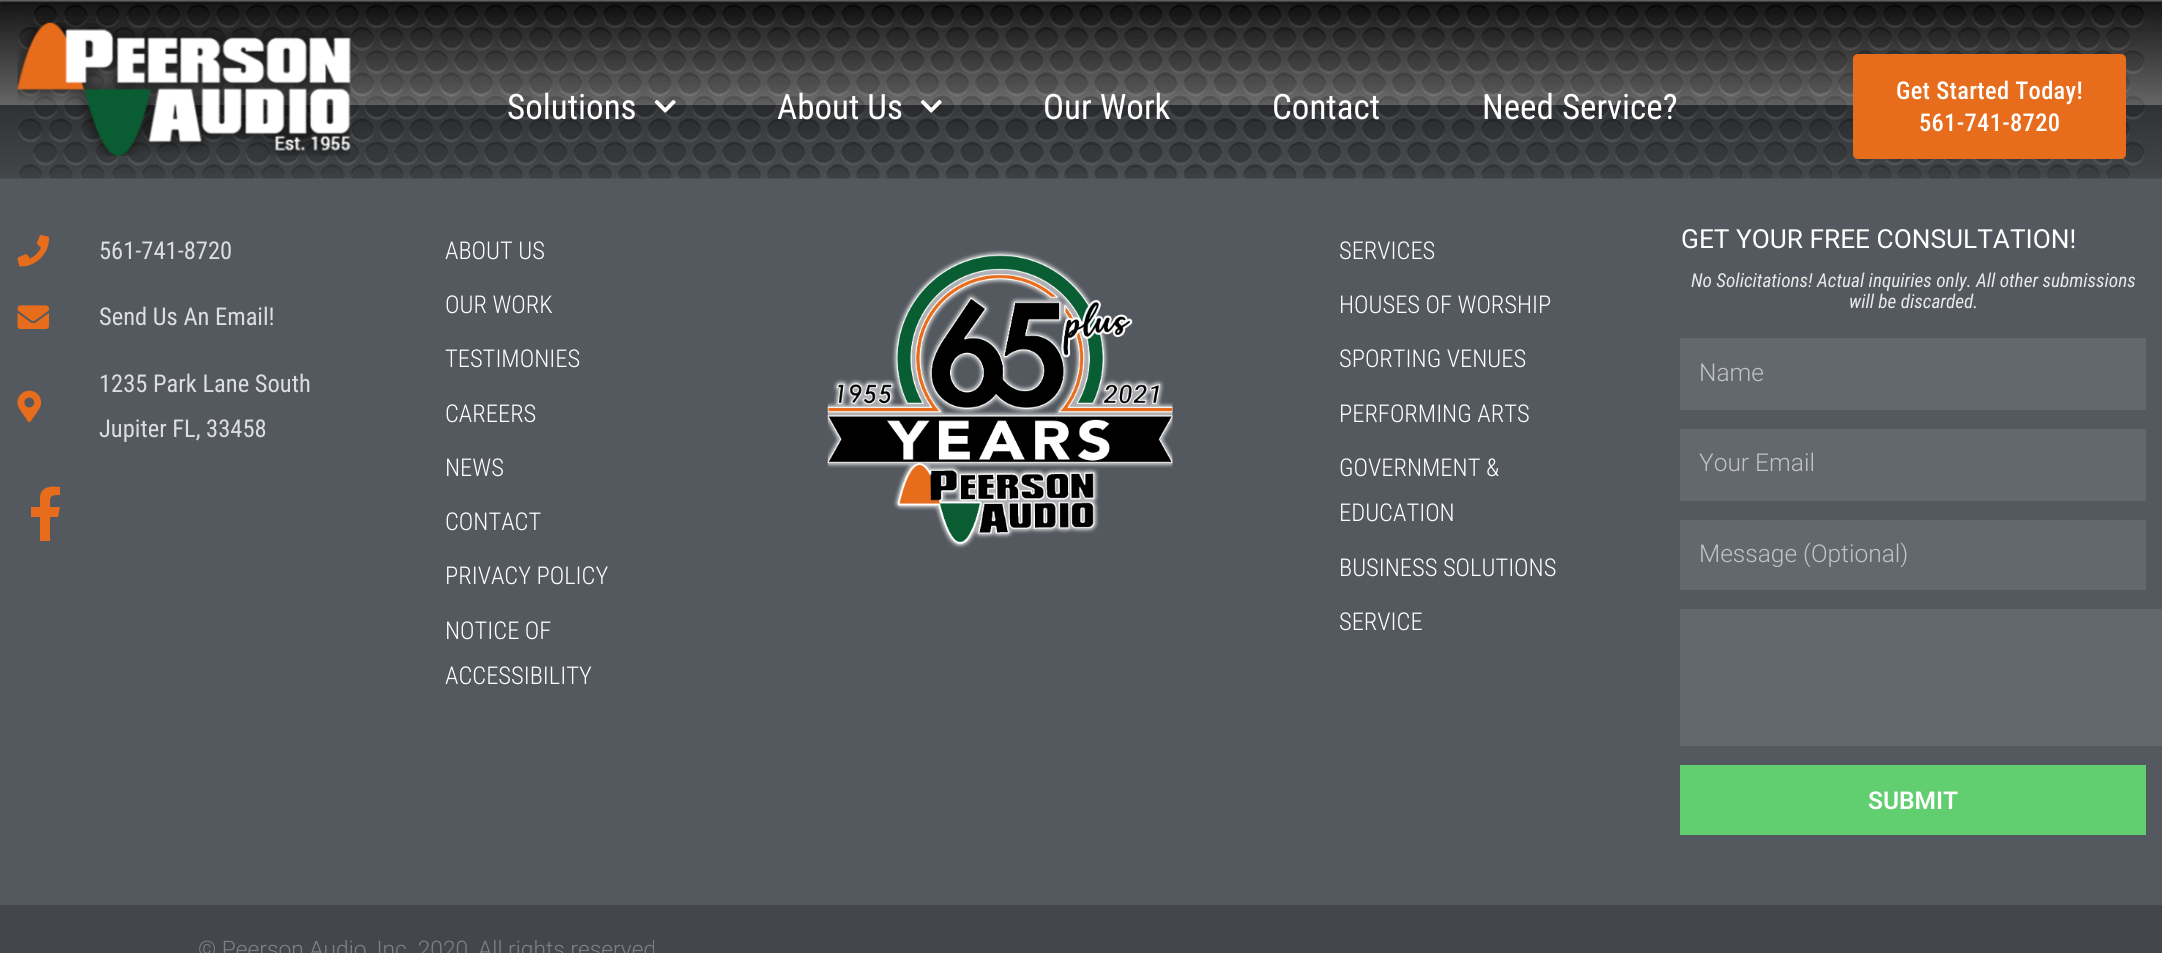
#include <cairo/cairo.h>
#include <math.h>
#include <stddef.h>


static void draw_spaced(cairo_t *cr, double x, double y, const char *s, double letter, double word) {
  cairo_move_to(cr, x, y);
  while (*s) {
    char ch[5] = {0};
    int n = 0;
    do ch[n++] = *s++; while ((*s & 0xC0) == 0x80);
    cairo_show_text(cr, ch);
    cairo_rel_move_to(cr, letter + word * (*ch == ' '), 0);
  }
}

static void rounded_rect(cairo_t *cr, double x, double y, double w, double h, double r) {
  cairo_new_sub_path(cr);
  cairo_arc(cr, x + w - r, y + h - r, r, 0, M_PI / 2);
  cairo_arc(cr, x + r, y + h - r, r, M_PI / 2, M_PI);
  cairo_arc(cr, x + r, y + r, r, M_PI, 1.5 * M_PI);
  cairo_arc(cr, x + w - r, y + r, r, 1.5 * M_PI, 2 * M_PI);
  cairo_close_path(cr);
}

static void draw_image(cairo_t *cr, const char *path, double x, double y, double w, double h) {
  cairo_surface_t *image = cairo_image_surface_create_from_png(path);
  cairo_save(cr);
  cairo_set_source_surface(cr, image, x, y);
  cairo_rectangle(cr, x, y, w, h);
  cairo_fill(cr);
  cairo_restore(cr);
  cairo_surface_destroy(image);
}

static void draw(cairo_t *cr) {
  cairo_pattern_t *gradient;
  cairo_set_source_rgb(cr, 245 / 255.0, 245 / 255.0, 245 / 255.0);
  cairo_paint(cr);
  cairo_set_source_rgb(cr, 84 / 255.0, 89 / 255.0, 95 / 255.0);
  cairo_rectangle(cr, 0, 105, 2162, 800);
  cairo_fill(cr);
  gradient = cairo_pattern_create_linear(1082, 0, 1082, 179);
  cairo_pattern_add_color_stop_rgba(gradient, 0, 0, 0, 0, 1);
  cairo_pattern_add_color_stop_rgba(gradient, 1, 0, 0, 0, 0);
  cairo_set_source(cr, gradient);
  cairo_pattern_destroy(gradient);
  cairo_rectangle(cr, 0, 0, 2162, 174);
  cairo_fill(cr);
  draw_image(cr, "images/1.png", 0, 0, 2162, 179);
  draw_image(cr, "images/2.png", 17, 22, 334, 134);
  draw_image(cr, "images/3.png", 654, 100, 22, 13);
  draw_image(cr, "images/4.png", 920, 100, 22, 13);
  cairo_set_source_rgb(cr, 231 / 255.0, 108 / 255.0, 28 / 255.0);
  rounded_rect(cr, 1853, 54, 273, 105, 5);
  cairo_fill(cr);
  draw_image(cr, "images/5.png", 17, 235, 33, 32);
  draw_image(cr, "images/6.png", 17, 305, 32, 24);
  draw_image(cr, "images/7.png", 17, 390, 25, 33);
  cairo_new_path(cr);
  cairo_move_to(cr, 58, 517);
  cairo_line_to(cr, 50, 517);
  cairo_line_to(cr, 50, 541);
  cairo_line_to(cr, 40, 541);
  cairo_line_to(cr, 40, 517);
  cairo_line_to(cr, 31, 517);
  cairo_line_to(cr, 31, 507);
  cairo_line_to(cr, 40, 507);
  cairo_line_to(cr, 40, 497);
  cairo_curve_to(cr, 41, 486, 51, 486, 60, 487);
  cairo_line_to(cr, 60, 495);
  cairo_curve_to(cr, 49, 495, 50, 497, 50, 507);
  cairo_line_to(cr, 60, 507);
  cairo_close_path(cr);
  cairo_fill(cr);
  draw_image(cr, "images/8.png", 827, 250, 346, 299);
  cairo_set_source_rgb(cr, 99 / 255.0, 104 / 255.0, 109 / 255.0);
  cairo_rectangle(cr, 1680, 338, 466, 72);
  cairo_fill(cr);
  cairo_rectangle(cr, 1680, 429, 466, 72);
  cairo_fill(cr);
  cairo_rectangle(cr, 1680, 520, 466, 70);
  cairo_fill(cr);
  cairo_rectangle(cr, 1680, 609, 482, 137);
  cairo_fill(cr);
  cairo_set_source_rgb(cr, 97 / 255.0, 206 / 255.0, 112 / 255.0);
  cairo_rectangle(cr, 1680, 765, 466, 70);
  cairo_fill(cr);
  cairo_set_source_rgb(cr, 67 / 255.0, 70 / 255.0, 76 / 255.0);
  cairo_rectangle(cr, 0, 905, 2162, 48);
  cairo_fill(cr);
  cairo_select_font_face(cr, "Roboto Condensed", CAIRO_FONT_SLANT_NORMAL, CAIRO_FONT_WEIGHT_NORMAL);
  cairo_set_font_size(cr, 35);
  cairo_set_source_rgb(cr, 1, 1, 1);
  cairo_move_to(cr, 507, 119);
  cairo_show_text(cr, "Solutions");
  cairo_move_to(cr, 777, 119);
  cairo_show_text(cr, "About Us");
  cairo_move_to(cr, 1043, 119);
  cairo_show_text(cr, "Our Work");
  cairo_move_to(cr, 1272, 119);
  cairo_show_text(cr, "Contact");
  cairo_move_to(cr, 1482, 119);
  cairo_show_text(cr, "Need Service?");
  cairo_select_font_face(cr, "Roboto Condensed Medium", CAIRO_FONT_SLANT_NORMAL, CAIRO_FONT_WEIGHT_NORMAL);
  cairo_set_font_size(cr, 24.5);
  draw_spaced(cr, 1896, 99, "Get Started Today!", 0.3, 0);
  draw_spaced(cr, 1919, 131, "561-741-8720", 0.3, 0);
  cairo_select_font_face(cr, "Roboto Condensed", CAIRO_FONT_SLANT_NORMAL, CAIRO_FONT_WEIGHT_NORMAL);
  cairo_set_source_rgb(cr, 221 / 255.0, 222 / 255.0, 223 / 255.0);
  cairo_move_to(cr, 99, 259);
  cairo_show_text(cr, "561-741-8720");
  cairo_move_to(cr, 99, 325);
  cairo_show_text(cr, "Send Us An Email!");
  cairo_move_to(cr, 99, 392);
  cairo_show_text(cr, "1235 Park Lane South");
  cairo_move_to(cr, 99, 437);
  cairo_show_text(cr, "Jupiter FL, 33458");
  cairo_select_font_face(cr, "Roboto Condensed Light", CAIRO_FONT_SLANT_NORMAL, CAIRO_FONT_WEIGHT_NORMAL);
  cairo_set_source_rgb(cr, 1, 1, 1);
  cairo_move_to(cr, 445, 259);
  cairo_show_text(cr, "ABOUT US");
  cairo_move_to(cr, 445, 313);
  cairo_show_text(cr, "OUR WORK");
  cairo_move_to(cr, 445, 367);
  cairo_show_text(cr, "TESTIMONIES");
  cairo_move_to(cr, 445, 422);
  cairo_show_text(cr, "CAREERS");
  cairo_move_to(cr, 445, 476);
  cairo_show_text(cr, "NEWS");
  cairo_move_to(cr, 445, 530);
  cairo_show_text(cr, "CONTACT");
  cairo_move_to(cr, 445, 584);
  cairo_show_text(cr, "PRIVACY POLICY");
  cairo_move_to(cr, 445, 639);
  cairo_show_text(cr, "NOTICE OF");
  cairo_move_to(cr, 445, 684);
  cairo_show_text(cr, "ACCESSIBILITY");
  cairo_move_to(cr, 1339, 259);
  cairo_show_text(cr, "SERVICES");
  cairo_move_to(cr, 1339, 313);
  cairo_show_text(cr, "HOUSES OF WORSHIP");
  cairo_move_to(cr, 1339, 367);
  cairo_show_text(cr, "SPORTING VENUES");
  cairo_move_to(cr, 1339, 422);
  cairo_show_text(cr, "PERFORMING ARTS");
  cairo_move_to(cr, 1339, 476);
  cairo_show_text(cr, "GOVERNMENT &");
  cairo_move_to(cr, 1339, 521);
  cairo_show_text(cr, "EDUCATION");
  cairo_move_to(cr, 1339, 576);
  cairo_show_text(cr, "BUSINESS SOLUTIONS");
  cairo_move_to(cr, 1339, 630);
  cairo_show_text(cr, "SERVICE");
  cairo_select_font_face(cr, "Roboto", CAIRO_FONT_SLANT_NORMAL, CAIRO_FONT_WEIGHT_NORMAL);
  cairo_set_font_size(cr, 26.25);
  cairo_move_to(cr, 1681, 248);
  cairo_show_text(cr, "GET YOUR FREE CONSULTATION!");
  cairo_select_font_face(cr, "Roboto Condensed", CAIRO_FONT_SLANT_ITALIC, CAIRO_FONT_WEIGHT_NORMAL);
  cairo_set_font_size(cr, 19.25);
  cairo_set_source_rgb(cr, 232 / 255.0, 232 / 255.0, 232 / 255.0);
  cairo_move_to(cr, 1691, 287);
  cairo_show_text(cr, "No Solicitations! Actual inquiries only. All other submissions");
  cairo_move_to(cr, 1849, 308);
  cairo_show_text(cr, "will be discarded.");
  cairo_select_font_face(cr, "Roboto Light", CAIRO_FONT_SLANT_NORMAL, CAIRO_FONT_WEIGHT_NORMAL);
  cairo_set_font_size(cr, 24.5);
  cairo_set_source_rgb(cr, 193 / 255.0, 195 / 255.0, 197 / 255.0);
  cairo_move_to(cr, 1699, 381);
  cairo_show_text(cr, "Name");
  cairo_move_to(cr, 1699, 471);
  cairo_show_text(cr, "Your Email");
  cairo_save(cr);
  cairo_rectangle(cr, 1699, 539, 429, 28);
  cairo_clip(cr);
  cairo_move_to(cr, 1699, 562);
  cairo_show_text(cr, "Message (Optional)");
  cairo_restore(cr);
  cairo_select_font_face(cr, "Roboto SemiBold", CAIRO_FONT_SLANT_NORMAL, CAIRO_FONT_WEIGHT_NORMAL);
  cairo_set_source_rgb(cr, 1, 1, 1);
  cairo_move_to(cr, 1868, 809);
  cairo_show_text(cr, "SUBMIT");
  cairo_select_font_face(cr, "Roboto Light", CAIRO_FONT_SLANT_NORMAL, CAIRO_FONT_WEIGHT_NORMAL);
  cairo_set_font_size(cr, 22.75);
  cairo_set_source_rgb(cr, 127 / 255.0, 129 / 255.0, 133 / 255.0);
  cairo_move_to(cr, 198, 957);
  cairo_show_text(cr, "© Peerson Audio, Inc. 2020, All rights reserved");
}

int main(void) {
  cairo_surface_t *surface = cairo_image_surface_create(CAIRO_FORMAT_RGB24, 2162, 953);
  cairo_t *cr = cairo_create(surface);
  cairo_font_options_t *options = cairo_font_options_create();
  cairo_font_options_set_hint_metrics(options, CAIRO_HINT_METRICS_OFF);
  cairo_font_options_set_hint_style(options, CAIRO_HINT_STYLE_NONE);
  cairo_set_font_options(cr, options);
  cairo_set_miter_limit(cr, 4);
  draw(cr);
  cairo_surface_write_to_png(surface, "out.png");
  cairo_font_options_destroy(options);
  cairo_destroy(cr);
  cairo_surface_destroy(surface);
  return 0;
}
